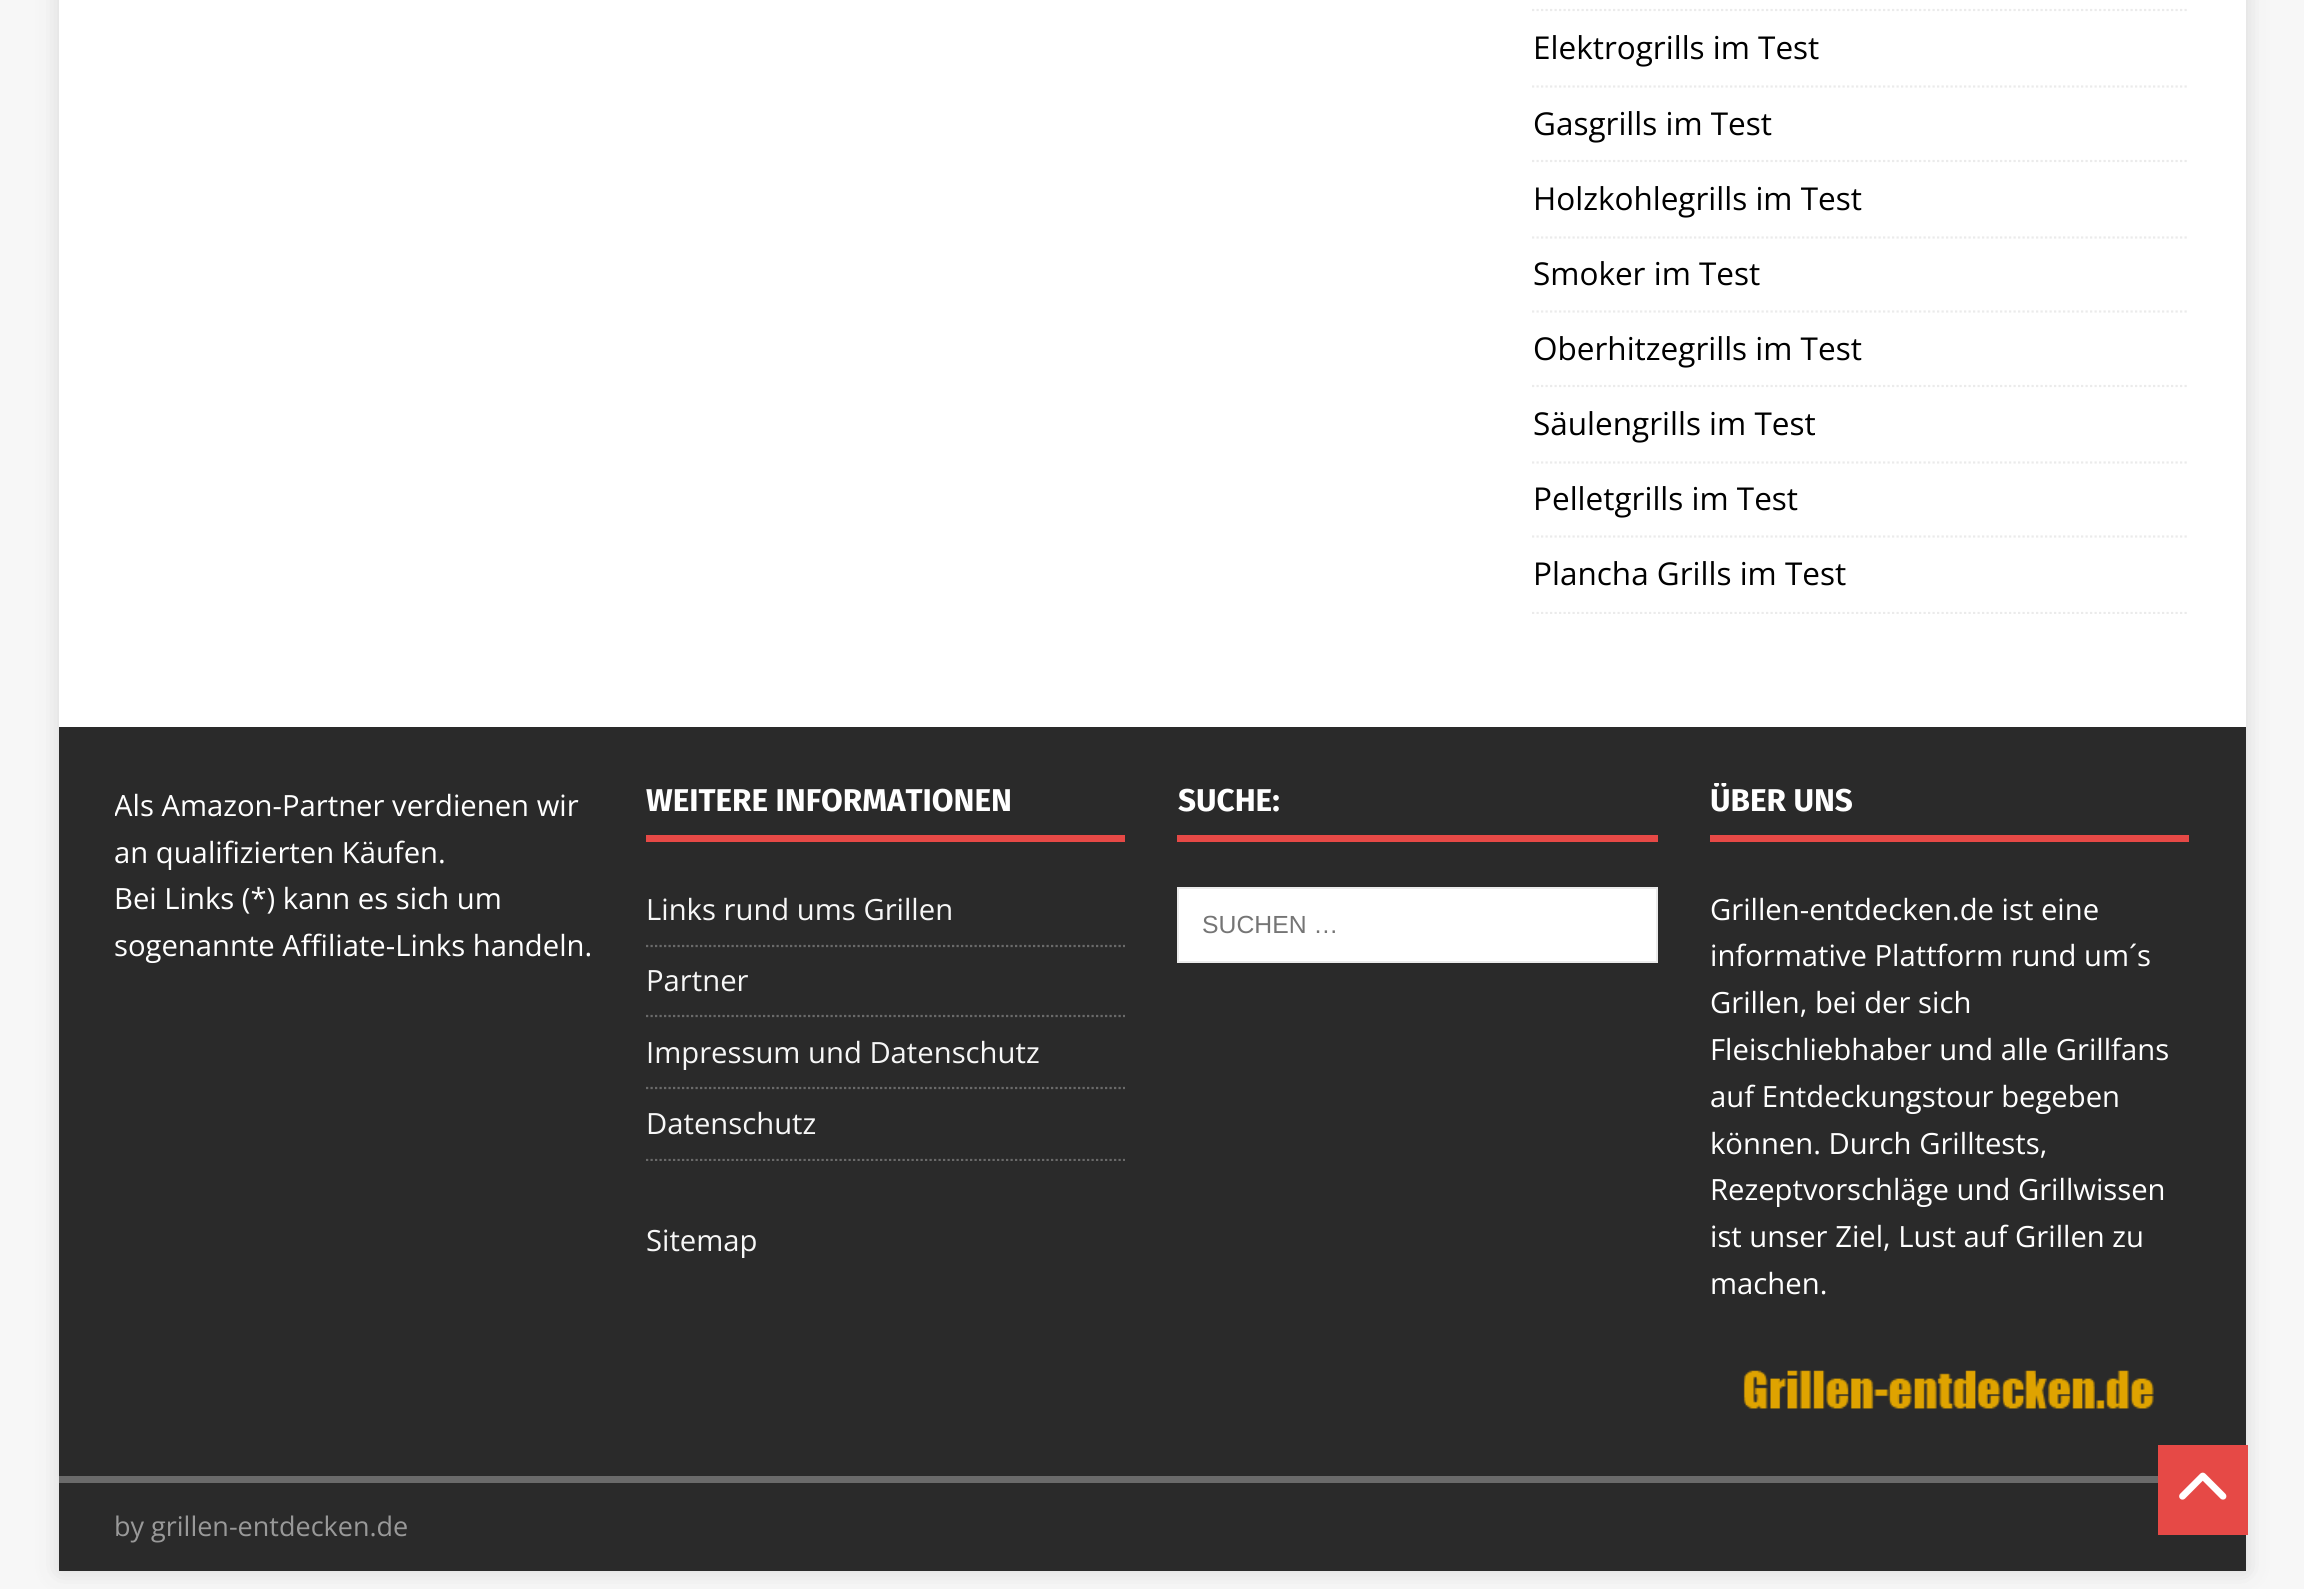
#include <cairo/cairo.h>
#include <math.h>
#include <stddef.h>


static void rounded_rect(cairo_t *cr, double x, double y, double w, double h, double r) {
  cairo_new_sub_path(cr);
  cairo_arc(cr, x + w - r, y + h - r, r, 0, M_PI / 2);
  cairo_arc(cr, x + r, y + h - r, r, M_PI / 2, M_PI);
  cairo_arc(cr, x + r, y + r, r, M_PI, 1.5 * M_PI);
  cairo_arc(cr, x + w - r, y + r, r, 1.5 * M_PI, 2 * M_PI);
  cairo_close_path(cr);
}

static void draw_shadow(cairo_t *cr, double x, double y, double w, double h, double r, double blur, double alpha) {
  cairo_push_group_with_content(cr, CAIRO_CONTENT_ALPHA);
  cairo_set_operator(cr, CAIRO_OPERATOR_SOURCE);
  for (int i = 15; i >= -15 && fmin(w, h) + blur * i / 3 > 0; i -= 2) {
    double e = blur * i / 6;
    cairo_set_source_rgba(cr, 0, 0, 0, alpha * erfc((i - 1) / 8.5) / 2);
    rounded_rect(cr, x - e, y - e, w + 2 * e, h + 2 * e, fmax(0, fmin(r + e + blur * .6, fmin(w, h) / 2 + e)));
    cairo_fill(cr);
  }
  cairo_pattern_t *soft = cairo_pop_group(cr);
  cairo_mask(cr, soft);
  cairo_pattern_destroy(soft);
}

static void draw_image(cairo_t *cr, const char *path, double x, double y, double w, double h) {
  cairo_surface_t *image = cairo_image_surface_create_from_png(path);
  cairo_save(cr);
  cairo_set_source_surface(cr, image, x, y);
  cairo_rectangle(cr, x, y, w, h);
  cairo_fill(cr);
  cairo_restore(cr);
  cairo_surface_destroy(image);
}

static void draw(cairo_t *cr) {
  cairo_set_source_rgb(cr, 247 / 255.0, 247 / 255.0, 247 / 255.0);
  cairo_paint(cr);
  cairo_set_source_rgb(cr, 50 / 255.0, 50 / 255.0, 50 / 255.0);
  draw_shadow(cr, 59, -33, 2187, 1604, 0, 11, 0.17);
  cairo_set_source_rgb(cr, 1, 1, 1);
  cairo_rectangle(cr, 59, 0, 2187, 727);
  cairo_fill(cr);
  cairo_new_path(cr);
  cairo_move_to(cr, 1532, 10);
  cairo_line_to(cr, 2189, 10);
  cairo_set_source_rgb(cr, 235 / 255.0, 235 / 255.0, 235 / 255.0);
  cairo_set_line_width(cr, 2.2);
  cairo_set_dash(cr, (double[]){2.25, 2.25}, 2, 0);
  cairo_stroke(cr);
  cairo_new_path(cr);
  cairo_move_to(cr, 1532, 86.5);
  cairo_line_to(cr, 2189, 86.5);
  cairo_stroke(cr);
  cairo_new_path(cr);
  cairo_move_to(cr, 1532, 161);
  cairo_line_to(cr, 2189, 161);
  cairo_stroke(cr);
  cairo_new_path(cr);
  cairo_move_to(cr, 1532, 237.5);
  cairo_line_to(cr, 2189, 237.5);
  cairo_stroke(cr);
  cairo_new_path(cr);
  cairo_move_to(cr, 1532, 311.5);
  cairo_line_to(cr, 2189, 311.5);
  cairo_stroke(cr);
  cairo_new_path(cr);
  cairo_move_to(cr, 1532, 386);
  cairo_line_to(cr, 2189, 386);
  cairo_stroke(cr);
  cairo_new_path(cr);
  cairo_move_to(cr, 1532, 462.5);
  cairo_line_to(cr, 2189, 462.5);
  cairo_stroke(cr);
  cairo_new_path(cr);
  cairo_move_to(cr, 1532, 536.5);
  cairo_line_to(cr, 2189, 536.5);
  cairo_stroke(cr);
  cairo_save(cr);
  cairo_rectangle(cr, 1532, 0, 657, 614);
  cairo_clip(cr);
  cairo_new_path(cr);
  cairo_move_to(cr, 1532, 613);
  cairo_line_to(cr, 2189, 613);
  cairo_stroke(cr);
  cairo_restore(cr);
  cairo_set_source_rgb(cr, 42 / 255.0, 42 / 255.0, 42 / 255.0);
  cairo_rectangle(cr, 59, 727, 2187, 749);
  cairo_fill(cr);
  cairo_set_source_rgb(cr, 230 / 255.0, 73 / 255.0, 70 / 255.0);
  cairo_rectangle(cr, 646, 835, 479, 7);
  cairo_fill(cr);
  cairo_new_path(cr);
  cairo_move_to(cr, 646, 946);
  cairo_line_to(cr, 1125, 946);
  cairo_set_source_rgb(cr, 106 / 255.0, 106 / 255.0, 106 / 255.0);
  cairo_stroke(cr);
  cairo_new_path(cr);
  cairo_move_to(cr, 646, 1016);
  cairo_line_to(cr, 1125, 1016);
  cairo_stroke(cr);
  cairo_new_path(cr);
  cairo_move_to(cr, 646, 1088);
  cairo_line_to(cr, 1125, 1088);
  cairo_stroke(cr);
  cairo_save(cr);
  cairo_rectangle(cr, 646, 783, 479, 378);
  cairo_clip(cr);
  cairo_new_path(cr);
  cairo_move_to(cr, 646, 1160);
  cairo_line_to(cr, 1125, 1160);
  cairo_stroke(cr);
  cairo_restore(cr);
  cairo_set_source_rgb(cr, 230 / 255.0, 73 / 255.0, 70 / 255.0);
  cairo_rectangle(cr, 1177, 835, 481, 7);
  cairo_fill(cr);
  cairo_set_source_rgb(cr, 1, 1, 1);
  cairo_rectangle(cr, 1178, 888, 479, 74);
  cairo_fill_preserve(cr);
  cairo_set_source_rgb(cr, 235 / 255.0, 235 / 255.0, 235 / 255.0);
  cairo_set_line_width(cr, 2);
  cairo_set_dash(cr, NULL, 0, 0);
  cairo_stroke(cr);
  cairo_set_source_rgb(cr, 230 / 255.0, 73 / 255.0, 70 / 255.0);
  cairo_rectangle(cr, 1710, 835, 479, 7);
  cairo_fill(cr);
  draw_image(cr, "images/1.png", 1743, 1370, 411, 39);
  cairo_set_source_rgb(cr, 42 / 255.0, 42 / 255.0, 42 / 255.0);
  cairo_rectangle(cr, 59, 1483, 2187, 88);
  cairo_fill(cr);
  cairo_set_source_rgb(cr, 106 / 255.0, 106 / 255.0, 106 / 255.0);
  cairo_rectangle(cr, 59, 1476, 2099, 7);
  cairo_fill(cr);
  cairo_set_source_rgb(cr, 230 / 255.0, 73 / 255.0, 70 / 255.0);
  cairo_rectangle(cr, 2158, 1445, 90, 90);
  cairo_fill(cr);
  draw_image(cr, "images/2.png", 2179, 1472, 48, 28);
  cairo_select_font_face(cr, "Open Sans", CAIRO_FONT_SLANT_NORMAL, CAIRO_FONT_WEIGHT_NORMAL);
  cairo_set_font_size(cr, 31.5);
  cairo_set_source_rgb(cr, 0, 0, 0);
  cairo_move_to(cr, 1533, 59);
  cairo_show_text(cr, "Elektrogrills im Test");
  cairo_move_to(cr, 1533, 135);
  cairo_show_text(cr, "Gasgrills im Test");
  cairo_move_to(cr, 1533, 210);
  cairo_show_text(cr, "Holzkohlegrills im Test");
  cairo_move_to(cr, 1533, 285);
  cairo_show_text(cr, "Smoker im Test");
  cairo_move_to(cr, 1533, 360);
  cairo_show_text(cr, "Oberhitzegrills im Test");
  cairo_move_to(cr, 1533, 435);
  cairo_show_text(cr, "Säulengrills im Test");
  cairo_move_to(cr, 1533, 510);
  cairo_show_text(cr, "Pelletgrills im Test");
  cairo_move_to(cr, 1533, 585);
  cairo_show_text(cr, "Plancha Grills im Test");
  cairo_save(cr);
  cairo_rectangle(cr, 115, 783, 479, 187);
  cairo_clip(cr);
  cairo_set_font_size(cr, 29.25);
  cairo_set_source_rgb(cr, 1, 1, 1);
  cairo_move_to(cr, 114, 816);
  cairo_show_text(cr, "Als Amazon-Partner verdienen wir");
  cairo_restore(cr);
  cairo_set_font_size(cr, 29.25);
  cairo_set_source_rgb(cr, 1, 1, 1);
  cairo_move_to(cr, 114, 863);
  cairo_show_text(cr, "an qualifizierten Käufen.");
  cairo_move_to(cr, 114, 909);
  cairo_show_text(cr, "Bei Links (*) kann es sich um");
  cairo_move_to(cr, 114, 956);
  cairo_show_text(cr, "sogenannte Affiliate-Links handeln.");
  cairo_select_font_face(cr, "Fira Sans", CAIRO_FONT_SLANT_NORMAL, CAIRO_FONT_WEIGHT_BOLD);
  cairo_set_font_size(cr, 31.5);
  cairo_move_to(cr, 646, 811);
  cairo_show_text(cr, "WEITERE INFORMATIONEN");
  cairo_select_font_face(cr, "Open Sans", CAIRO_FONT_SLANT_NORMAL, CAIRO_FONT_WEIGHT_NORMAL);
  cairo_set_font_size(cr, 29.25);
  cairo_set_source_rgb(cr, 247 / 255.0, 247 / 255.0, 247 / 255.0);
  cairo_move_to(cr, 646, 920);
  cairo_show_text(cr, "Links rund ums Grillen");
  cairo_move_to(cr, 646, 991);
  cairo_show_text(cr, "Partner");
  cairo_move_to(cr, 646, 1063);
  cairo_show_text(cr, "Impressum und Datenschutz");
  cairo_move_to(cr, 646, 1134);
  cairo_show_text(cr, "Datenschutz");
  cairo_move_to(cr, 646, 1251);
  cairo_show_text(cr, "Sitemap");
  cairo_select_font_face(cr, "Fira Sans", CAIRO_FONT_SLANT_NORMAL, CAIRO_FONT_WEIGHT_BOLD);
  cairo_set_font_size(cr, 31.5);
  cairo_set_source_rgb(cr, 1, 1, 1);
  cairo_move_to(cr, 1178, 811);
  cairo_show_text(cr, "SUCHE:");
  cairo_select_font_face(cr, "Liberation Sans", CAIRO_FONT_SLANT_NORMAL, CAIRO_FONT_WEIGHT_NORMAL);
  cairo_set_font_size(cr, 24.75);
  cairo_set_source_rgb(cr, 117 / 255.0, 117 / 255.0, 117 / 255.0);
  cairo_move_to(cr, 1202, 933);
  cairo_show_text(cr, "SUCHEN …");
  cairo_save(cr);
  cairo_rectangle(cr, 1710, 783, 479, 524);
  cairo_clip(cr);
  cairo_select_font_face(cr, "Fira Sans", CAIRO_FONT_SLANT_NORMAL, CAIRO_FONT_WEIGHT_BOLD);
  cairo_set_font_size(cr, 31.5);
  cairo_set_source_rgb(cr, 1, 1, 1);
  cairo_move_to(cr, 1710, 811);
  cairo_show_text(cr, "ÜBER UNS");
  cairo_restore(cr);
  cairo_select_font_face(cr, "Open Sans", CAIRO_FONT_SLANT_NORMAL, CAIRO_FONT_WEIGHT_NORMAL);
  cairo_set_font_size(cr, 29.25);
  cairo_set_source_rgb(cr, 1, 1, 1);
  cairo_move_to(cr, 1710, 920);
  cairo_show_text(cr, "Grillen-entdecken.de ist eine");
  cairo_move_to(cr, 1710, 966);
  cairo_show_text(cr, "informative Plattform rund um´s");
  cairo_move_to(cr, 1710, 1013);
  cairo_show_text(cr, "Grillen, bei der sich");
  cairo_move_to(cr, 1710, 1060);
  cairo_show_text(cr, "Fleischliebhaber und alle Grillfans");
  cairo_move_to(cr, 1710, 1107);
  cairo_show_text(cr, "auf Entdeckungstour begeben");
  cairo_move_to(cr, 1710, 1154);
  cairo_show_text(cr, "können. Durch Grilltests,");
  cairo_move_to(cr, 1710, 1200);
  cairo_show_text(cr, "Rezeptvorschläge und Grillwissen");
  cairo_move_to(cr, 1710, 1247);
  cairo_show_text(cr, "ist unser Ziel, Lust auf Grillen zu");
  cairo_move_to(cr, 1710, 1294);
  cairo_show_text(cr, "machen.");
  cairo_set_font_size(cr, 27);
  cairo_set_source_rgb(cr, 153 / 255.0, 153 / 255.0, 153 / 255.0);
  cairo_move_to(cr, 114, 1536);
  cairo_show_text(cr, "by grillen-entdecken.de");
}

int main(void) {
  cairo_surface_t *surface = cairo_image_surface_create(CAIRO_FORMAT_RGB24, 2304, 1589);
  cairo_t *cr = cairo_create(surface);
  cairo_font_options_t *options = cairo_font_options_create();
  cairo_font_options_set_hint_metrics(options, CAIRO_HINT_METRICS_OFF);
  cairo_font_options_set_hint_style(options, CAIRO_HINT_STYLE_NONE);
  cairo_set_font_options(cr, options);
  cairo_set_miter_limit(cr, 4);
  draw(cr);
  cairo_surface_write_to_png(surface, "out.png");
  cairo_font_options_destroy(options);
  cairo_destroy(cr);
  cairo_surface_destroy(surface);
  return 0;
}
